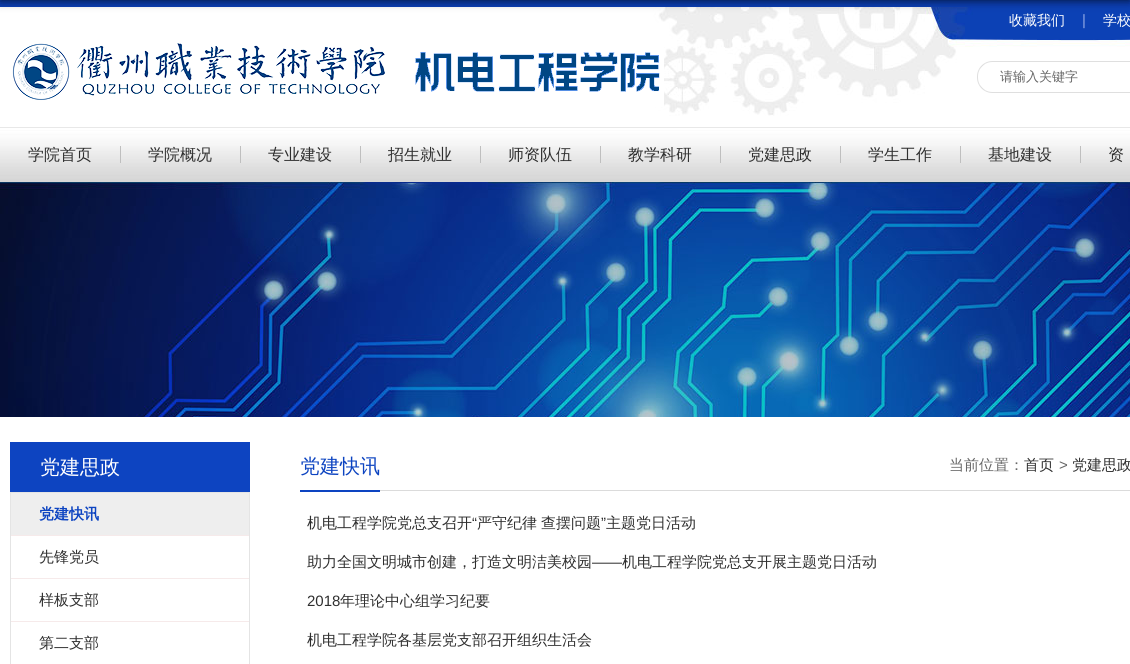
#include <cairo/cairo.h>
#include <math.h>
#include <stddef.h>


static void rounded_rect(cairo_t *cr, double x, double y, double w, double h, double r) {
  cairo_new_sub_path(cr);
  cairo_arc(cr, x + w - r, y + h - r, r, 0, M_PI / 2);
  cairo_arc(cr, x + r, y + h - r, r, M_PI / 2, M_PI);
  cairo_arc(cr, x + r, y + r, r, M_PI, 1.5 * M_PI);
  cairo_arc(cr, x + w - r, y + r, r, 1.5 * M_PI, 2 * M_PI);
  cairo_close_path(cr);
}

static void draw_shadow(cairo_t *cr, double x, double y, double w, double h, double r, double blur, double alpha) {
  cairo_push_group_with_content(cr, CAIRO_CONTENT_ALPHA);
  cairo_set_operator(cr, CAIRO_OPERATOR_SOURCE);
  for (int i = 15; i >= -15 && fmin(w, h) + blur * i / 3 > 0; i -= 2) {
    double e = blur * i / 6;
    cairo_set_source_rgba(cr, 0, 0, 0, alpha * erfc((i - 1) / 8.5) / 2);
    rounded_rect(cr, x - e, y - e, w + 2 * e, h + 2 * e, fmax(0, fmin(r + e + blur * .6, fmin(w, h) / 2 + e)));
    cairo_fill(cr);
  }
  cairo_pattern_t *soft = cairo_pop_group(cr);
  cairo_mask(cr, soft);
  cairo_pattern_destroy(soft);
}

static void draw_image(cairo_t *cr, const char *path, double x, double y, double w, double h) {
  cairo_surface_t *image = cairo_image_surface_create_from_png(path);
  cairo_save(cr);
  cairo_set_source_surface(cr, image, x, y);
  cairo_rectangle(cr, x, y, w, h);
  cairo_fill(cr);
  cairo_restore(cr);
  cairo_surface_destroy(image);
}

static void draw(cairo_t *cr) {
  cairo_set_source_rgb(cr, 1, 1, 1);
  cairo_paint(cr);
  draw_image(cr, "images/1.png", 648, 7, 482, 109);
  cairo_set_source_rgb(cr, 12 / 255.0, 64 / 255.0, 182 / 255.0);
  cairo_rectangle(cr, 0, 0, 1130, 7);
  cairo_fill(cr);
  cairo_set_source_rgb(cr, 0, 0, 0);
  draw_shadow(cr, 0, -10, 1130, 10, 0, 5, 0.8);
  draw_image(cr, "images/2.png", 12, 43, 652, 64);
  draw_image(cr, "images/3.png", 977, 61, 153, 32);
  draw_image(cr, "images/4.png", 0, 127, 1130, 55);
  cairo_set_source_rgb(cr, 191 / 255.0, 191 / 255.0, 191 / 255.0);
  cairo_rectangle(cr, 120, 146, 1, 17);
  cairo_fill(cr);
  cairo_rectangle(cr, 240, 146, 1, 17);
  cairo_fill(cr);
  cairo_rectangle(cr, 360, 146, 1, 17);
  cairo_fill(cr);
  cairo_rectangle(cr, 480, 146, 1, 17);
  cairo_fill(cr);
  cairo_rectangle(cr, 600, 146, 1, 17);
  cairo_fill(cr);
  cairo_rectangle(cr, 720, 146, 1, 17);
  cairo_fill(cr);
  cairo_rectangle(cr, 840, 146, 1, 17);
  cairo_fill(cr);
  cairo_rectangle(cr, 960, 146, 1, 17);
  cairo_fill(cr);
  cairo_rectangle(cr, 1080, 146, 1, 17);
  cairo_fill(cr);
  draw_image(cr, "images/5.png", 0, 182, 1130, 235);
  cairo_set_source_rgb(cr, 13 / 255.0, 68 / 255.0, 193 / 255.0);
  cairo_rectangle(cr, 10, 442, 240, 50);
  cairo_fill(cr);
  cairo_rectangle(cr, 10.5, 492.5, 239, 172);
  cairo_set_source_rgb(cr, 228 / 255.0, 228 / 255.0, 228 / 255.0);
  cairo_set_line_width(cr, 1);
  cairo_stroke(cr);
  cairo_set_source_rgb(cr, 238 / 255.0, 238 / 255.0, 238 / 255.0);
  cairo_rectangle(cr, 11, 493, 238, 42);
  cairo_fill(cr);
  cairo_set_source_rgb(cr, 246 / 255.0, 234 / 255.0, 234 / 255.0);
  cairo_rectangle(cr, 11, 535, 238, 1);
  cairo_fill(cr);
  cairo_rectangle(cr, 11, 578, 238, 1);
  cairo_fill(cr);
  cairo_rectangle(cr, 11, 621, 238, 1);
  cairo_fill(cr);
  cairo_set_source_rgb(cr, 219 / 255.0, 219 / 255.0, 219 / 255.0);
  cairo_rectangle(cr, 380, 490, 750, 1);
  cairo_fill(cr);
  cairo_set_source_rgb(cr, 13 / 255.0, 68 / 255.0, 193 / 255.0);
  cairo_rectangle(cr, 300, 490, 80, 2);
  cairo_fill(cr);
  cairo_select_font_face(cr, "WenQuanYi Zen Hei Medium", CAIRO_FONT_SLANT_NORMAL, CAIRO_FONT_WEIGHT_NORMAL);
  cairo_set_font_size(cr, 14);
  cairo_set_source_rgb(cr, 1, 1, 1);
  cairo_move_to(cr, 1009, 25);
  cairo_show_text(cr, "收藏我们");
  cairo_select_font_face(cr, "Liberation Sans", CAIRO_FONT_SLANT_NORMAL, CAIRO_FONT_WEIGHT_NORMAL);
  cairo_set_font_size(cr, 15);
  cairo_set_source_rgb(cr, 141 / 255.0, 166 / 255.0, 227 / 255.0);
  cairo_move_to(cr, 1082, 25);
  cairo_show_text(cr, "|");
  cairo_select_font_face(cr, "WenQuanYi Zen Hei Medium", CAIRO_FONT_SLANT_NORMAL, CAIRO_FONT_WEIGHT_NORMAL);
  cairo_set_font_size(cr, 14);
  cairo_set_source_rgb(cr, 1, 1, 1);
  cairo_move_to(cr, 1103, 25);
  cairo_show_text(cr, "学校");
  cairo_set_font_size(cr, 13);
  cairo_set_source_rgb(cr, 102 / 255.0, 102 / 255.0, 102 / 255.0);
  cairo_move_to(cr, 1000, 81);
  cairo_show_text(cr, "请输入关键字");
  cairo_set_font_size(cr, 16);
  cairo_set_source_rgb(cr, 47 / 255.0, 47 / 255.0, 47 / 255.0);
  cairo_move_to(cr, 28, 160);
  cairo_show_text(cr, "学院首页");
  cairo_move_to(cr, 148, 160);
  cairo_show_text(cr, "学院概况");
  cairo_move_to(cr, 268, 160);
  cairo_show_text(cr, "专业建设");
  cairo_move_to(cr, 388, 160);
  cairo_show_text(cr, "招生就业");
  cairo_move_to(cr, 508, 160);
  cairo_show_text(cr, "师资队伍");
  cairo_move_to(cr, 628, 160);
  cairo_show_text(cr, "教学科研");
  cairo_move_to(cr, 748, 160);
  cairo_show_text(cr, "党建思政");
  cairo_move_to(cr, 868, 160);
  cairo_show_text(cr, "学生工作");
  cairo_move_to(cr, 988, 160);
  cairo_show_text(cr, "基地建设");
  cairo_move_to(cr, 1108, 160);
  cairo_show_text(cr, "资");
  cairo_set_font_size(cr, 20);
  cairo_set_source_rgb(cr, 1, 1, 1);
  cairo_move_to(cr, 40, 474);
  cairo_show_text(cr, "党建思政");
  cairo_select_font_face(cr, "WenQuanYi Zen Hei", CAIRO_FONT_SLANT_NORMAL, CAIRO_FONT_WEIGHT_BOLD);
  cairo_set_font_size(cr, 15);
  cairo_set_source_rgb(cr, 13 / 255.0, 68 / 255.0, 193 / 255.0);
  cairo_move_to(cr, 39, 519);
  cairo_show_text(cr, "党建快讯");
  cairo_select_font_face(cr, "WenQuanYi Zen Hei Medium", CAIRO_FONT_SLANT_NORMAL, CAIRO_FONT_WEIGHT_NORMAL);
  cairo_set_source_rgb(cr, 47 / 255.0, 47 / 255.0, 47 / 255.0);
  cairo_move_to(cr, 39, 562);
  cairo_show_text(cr, "先锋党员");
  cairo_move_to(cr, 39, 605);
  cairo_show_text(cr, "样板支部");
  cairo_move_to(cr, 39, 648);
  cairo_show_text(cr, "第二支部");
  cairo_set_font_size(cr, 20);
  cairo_set_source_rgb(cr, 13 / 255.0, 68 / 255.0, 193 / 255.0);
  cairo_move_to(cr, 300, 473);
  cairo_show_text(cr, "党建快讯");
  cairo_set_font_size(cr, 15);
  cairo_set_source_rgb(cr, 102 / 255.0, 102 / 255.0, 102 / 255.0);
  cairo_move_to(cr, 949, 470);
  cairo_show_text(cr, "当前位置：");
  cairo_set_source_rgb(cr, 47 / 255.0, 47 / 255.0, 47 / 255.0);
  cairo_move_to(cr, 1024, 470);
  cairo_show_text(cr, "首页");
  cairo_select_font_face(cr, "Liberation Sans", CAIRO_FONT_SLANT_NORMAL, CAIRO_FONT_WEIGHT_NORMAL);
  cairo_set_source_rgb(cr, 102 / 255.0, 102 / 255.0, 102 / 255.0);
  cairo_move_to(cr, 1059, 470);
  cairo_show_text(cr, ">");
  cairo_select_font_face(cr, "WenQuanYi Zen Hei Medium", CAIRO_FONT_SLANT_NORMAL, CAIRO_FONT_WEIGHT_NORMAL);
  cairo_set_source_rgb(cr, 47 / 255.0, 47 / 255.0, 47 / 255.0);
  cairo_move_to(cr, 1072, 470);
  cairo_show_text(cr, "党建思政");
  cairo_move_to(cr, 307, 528);
  cairo_show_text(cr, "机电工程学院党总支召开");
  cairo_select_font_face(cr, "Liberation Sans", CAIRO_FONT_SLANT_NORMAL, CAIRO_FONT_WEIGHT_NORMAL);
  cairo_move_to(cr, 472, 528);
  cairo_show_text(cr, "“");
  cairo_select_font_face(cr, "WenQuanYi Zen Hei Medium", CAIRO_FONT_SLANT_NORMAL, CAIRO_FONT_WEIGHT_NORMAL);
  cairo_move_to(cr, 477, 528);
  cairo_show_text(cr, "严守纪律");
  cairo_move_to(cr, 541, 528);
  cairo_show_text(cr, "查摆问题");
  cairo_select_font_face(cr, "Liberation Sans", CAIRO_FONT_SLANT_NORMAL, CAIRO_FONT_WEIGHT_NORMAL);
  cairo_move_to(cr, 601, 528);
  cairo_show_text(cr, "”");
  cairo_select_font_face(cr, "WenQuanYi Zen Hei Medium", CAIRO_FONT_SLANT_NORMAL, CAIRO_FONT_WEIGHT_NORMAL);
  cairo_move_to(cr, 606, 528);
  cairo_show_text(cr, "主题党日活动");
  cairo_move_to(cr, 307, 567);
  cairo_show_text(cr, "助力全国文明城市创建，打造文明洁美校园");
  cairo_select_font_face(cr, "Liberation Sans", CAIRO_FONT_SLANT_NORMAL, CAIRO_FONT_WEIGHT_NORMAL);
  cairo_move_to(cr, 592, 567);
  cairo_show_text(cr, "——");
  cairo_select_font_face(cr, "WenQuanYi Zen Hei Medium", CAIRO_FONT_SLANT_NORMAL, CAIRO_FONT_WEIGHT_NORMAL);
  cairo_move_to(cr, 622, 567);
  cairo_show_text(cr, "机电工程学院党总支开展主题党日活动");
  cairo_select_font_face(cr, "Liberation Sans", CAIRO_FONT_SLANT_NORMAL, CAIRO_FONT_WEIGHT_NORMAL);
  cairo_move_to(cr, 307, 606);
  cairo_show_text(cr, "2018");
  cairo_select_font_face(cr, "WenQuanYi Zen Hei Medium", CAIRO_FONT_SLANT_NORMAL, CAIRO_FONT_WEIGHT_NORMAL);
  cairo_move_to(cr, 340, 606);
  cairo_show_text(cr, "年理论中心组学习纪要");
  cairo_move_to(cr, 307, 645);
  cairo_show_text(cr, "机电工程学院各基层党支部召开组织生活会");
}

int main(void) {
  cairo_surface_t *surface = cairo_image_surface_create(CAIRO_FORMAT_RGB24, 1130, 664);
  cairo_t *cr = cairo_create(surface);
  cairo_font_options_t *options = cairo_font_options_create();
  cairo_font_options_set_hint_metrics(options, CAIRO_HINT_METRICS_OFF);
  cairo_font_options_set_hint_style(options, CAIRO_HINT_STYLE_NONE);
  cairo_set_font_options(cr, options);
  cairo_set_miter_limit(cr, 4);
  draw(cr);
  cairo_surface_write_to_png(surface, "out.png");
  cairo_font_options_destroy(options);
  cairo_destroy(cr);
  cairo_surface_destroy(surface);
  return 0;
}
